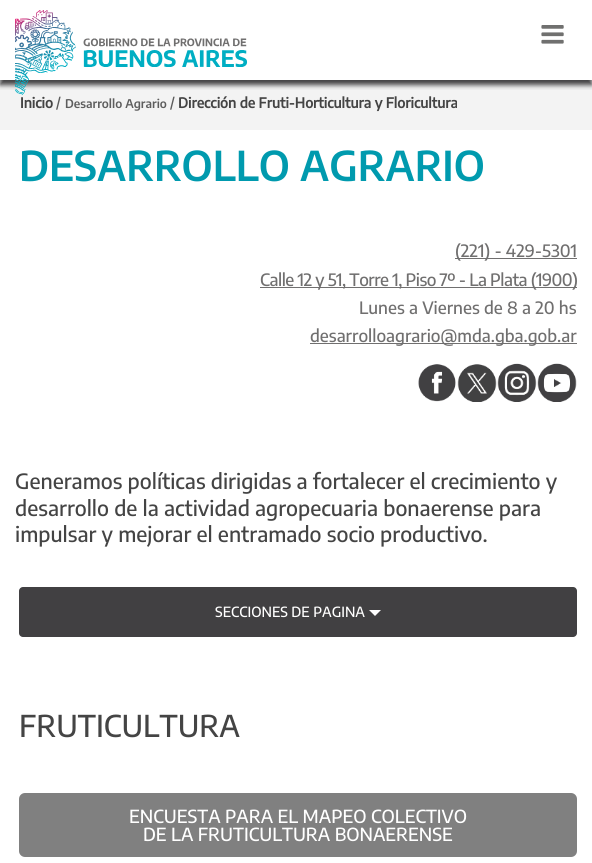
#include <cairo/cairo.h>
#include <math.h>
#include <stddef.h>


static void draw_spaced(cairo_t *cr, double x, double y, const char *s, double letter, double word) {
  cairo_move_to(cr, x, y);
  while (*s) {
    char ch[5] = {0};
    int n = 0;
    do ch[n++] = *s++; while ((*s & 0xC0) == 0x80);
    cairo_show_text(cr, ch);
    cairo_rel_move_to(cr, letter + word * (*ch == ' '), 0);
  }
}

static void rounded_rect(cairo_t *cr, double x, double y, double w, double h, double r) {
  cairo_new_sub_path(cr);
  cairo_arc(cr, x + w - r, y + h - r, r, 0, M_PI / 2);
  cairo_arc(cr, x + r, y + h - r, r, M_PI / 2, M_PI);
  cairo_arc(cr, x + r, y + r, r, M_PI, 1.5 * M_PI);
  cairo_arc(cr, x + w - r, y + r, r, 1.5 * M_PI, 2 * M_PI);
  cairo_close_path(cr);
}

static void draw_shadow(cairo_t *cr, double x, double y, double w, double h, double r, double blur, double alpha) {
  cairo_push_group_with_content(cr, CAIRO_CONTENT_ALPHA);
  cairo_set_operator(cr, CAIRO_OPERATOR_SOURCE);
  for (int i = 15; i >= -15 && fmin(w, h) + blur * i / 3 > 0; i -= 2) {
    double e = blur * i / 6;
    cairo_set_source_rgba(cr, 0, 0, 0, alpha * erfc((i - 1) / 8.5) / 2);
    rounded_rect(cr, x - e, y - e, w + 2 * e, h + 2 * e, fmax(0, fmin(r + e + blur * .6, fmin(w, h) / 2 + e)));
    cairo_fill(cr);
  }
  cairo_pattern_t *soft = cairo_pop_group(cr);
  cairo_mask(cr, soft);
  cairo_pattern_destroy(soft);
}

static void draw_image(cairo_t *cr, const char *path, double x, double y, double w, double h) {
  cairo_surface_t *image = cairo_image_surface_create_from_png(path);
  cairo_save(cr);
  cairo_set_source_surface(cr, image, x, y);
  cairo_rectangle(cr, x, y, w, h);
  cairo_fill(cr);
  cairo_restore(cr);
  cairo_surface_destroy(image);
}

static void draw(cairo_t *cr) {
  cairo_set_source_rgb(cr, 1, 1, 1);
  cairo_paint(cr);
  cairo_set_source_rgb(cr, 243 / 255.0, 243 / 255.0, 243 / 255.0);
  cairo_rectangle(cr, 0, 80, 592, 50);
  cairo_fill(cr);
  cairo_save(cr);
  cairo_rectangle(cr, 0, 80, 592, 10);
  cairo_clip(cr);
  cairo_set_source_rgb(cr, 65 / 255.0, 64 / 255.0, 66 / 255.0);
  draw_shadow(cr, 0, 5, 592, 80, 0, 2.5, 1);
  cairo_restore(cr);
  draw_image(cr, "images/1.png", 15, 10, 233, 85);
  draw_image(cr, "images/2.png", 541, 25, 23, 19);
  cairo_set_source_rgb(cr, 112 / 255.0, 111 / 255.0, 111 / 255.0);
  cairo_rectangle(cr, 455, 258, 122, 1);
  cairo_fill(cr);
  cairo_rectangle(cr, 260, 287, 317, 1);
  cairo_fill(cr);
  cairo_rectangle(cr, 310, 343, 267, 1);
  cairo_fill(cr);
  draw_image(cr, "images/3.png", 418, 364, 38, 38);
  draw_image(cr, "images/4.png", 457, 364, 40, 38);
  draw_image(cr, "images/5.png", 497, 363, 40, 39);
  draw_image(cr, "images/6.png", 537, 363, 40, 39);
  cairo_set_source_rgb(cr, 65 / 255.0, 64 / 255.0, 66 / 255.0);
  rounded_rect(cr, 19, 587, 558, 50, 4);
  cairo_fill(cr);
  cairo_set_source_rgb(cr, 1, 1, 1);
  cairo_new_path(cr);
  cairo_move_to(cr, 369, 610);
  cairo_line_to(cr, 381, 610);
  cairo_line_to(cr, 375, 616);
  cairo_close_path(cr);
  cairo_fill(cr);
  cairo_set_source_rgb(cr, 128 / 255.0, 128 / 255.0, 128 / 255.0);
  rounded_rect(cr, 19, 793, 558, 64, 6);
  cairo_fill(cr);
  cairo_select_font_face(cr, "Encode Sans", CAIRO_FONT_SLANT_NORMAL, CAIRO_FONT_WEIGHT_BOLD);
  cairo_set_font_size(cr, 14);
  cairo_set_source_rgb(cr, 68 / 255.0, 68 / 255.0, 68 / 255.0);
  cairo_move_to(cr, 20, 108);
  cairo_show_text(cr, "Inicio");
  cairo_select_font_face(cr, "Encode Sans Medium", CAIRO_FONT_SLANT_NORMAL, CAIRO_FONT_WEIGHT_NORMAL);
  cairo_set_source_rgb(cr, 93 / 255.0, 93 / 255.0, 93 / 255.0);
  cairo_move_to(cr, 56, 108);
  cairo_show_text(cr, "/");
  cairo_select_font_face(cr, "Encode Sans SemiBold", CAIRO_FONT_SLANT_NORMAL, CAIRO_FONT_WEIGHT_NORMAL);
  cairo_set_font_size(cr, 12);
  cairo_move_to(cr, 65, 108);
  cairo_show_text(cr, "Desarrollo Agrario");
  cairo_select_font_face(cr, "Encode Sans Medium", CAIRO_FONT_SLANT_NORMAL, CAIRO_FONT_WEIGHT_NORMAL);
  cairo_set_font_size(cr, 14);
  cairo_move_to(cr, 170, 108);
  cairo_show_text(cr, "/");
  cairo_select_font_face(cr, "Encode Sans", CAIRO_FONT_SLANT_NORMAL, CAIRO_FONT_WEIGHT_BOLD);
  cairo_set_source_rgb(cr, 68 / 255.0, 68 / 255.0, 68 / 255.0);
  cairo_move_to(cr, 178, 108);
  cairo_show_text(cr, "Dirección de Fruti-Horticultura y Floricultura");
  cairo_select_font_face(cr, "Encode Sans SemiBold", CAIRO_FONT_SLANT_NORMAL, CAIRO_FONT_WEIGHT_NORMAL);
  cairo_set_font_size(cr, 41);
  cairo_set_source_rgb(cr, 0, 154 / 255.0, 174 / 255.0);
  cairo_move_to(cr, 19, 181);
  cairo_show_text(cr, "DESARROLLO AGRARIO");
  cairo_select_font_face(cr, "Encode Sans Medium", CAIRO_FONT_SLANT_NORMAL, CAIRO_FONT_WEIGHT_NORMAL);
  cairo_set_font_size(cr, 17);
  cairo_set_source_rgb(cr, 112 / 255.0, 111 / 255.0, 111 / 255.0);
  cairo_move_to(cr, 455, 257);
  cairo_show_text(cr, "(221) - 429-5301");
  draw_spaced(cr, 260, 286, "Calle 12 y 51, Torre 1, Piso 7º - La Plata (1900)", -0.5, 0);
  cairo_move_to(cr, 359, 314);
  cairo_show_text(cr, "Lunes a Viernes de 8 a 20 hs");
  cairo_move_to(cr, 310, 342);
  cairo_show_text(cr, "desarrolloagrario@mda.gba.gob.ar");
  cairo_set_font_size(cr, 21);
  cairo_set_source_rgb(cr, 68 / 255.0, 68 / 255.0, 68 / 255.0);
  cairo_move_to(cr, 15, 489);
  cairo_show_text(cr, "Generamos políticas dirigidas a fortalecer el crecimiento y");
  cairo_move_to(cr, 15, 516);
  cairo_show_text(cr, "desarrollo de la actividad agropecuaria bonaerense para");
  cairo_move_to(cr, 15, 542);
  cairo_show_text(cr, "impulsar y mejorar el entramado socio productivo.");
  cairo_set_font_size(cr, 14);
  cairo_set_source_rgb(cr, 1, 1, 1);
  cairo_move_to(cr, 215, 617);
  cairo_show_text(cr, "SECCIONES DE PAGINA");
  cairo_set_font_size(cr, 30);
  cairo_set_source_rgb(cr, 68 / 255.0, 68 / 255.0, 68 / 255.0);
  cairo_move_to(cr, 19, 737);
  cairo_show_text(cr, "FRUTICULTURA");
  cairo_set_font_size(cr, 18);
  cairo_set_source_rgb(cr, 1, 1, 1);
  cairo_move_to(cr, 129, 823);
  cairo_show_text(cr, "ENCUESTA PARA EL MAPEO COLECTIVO");
  cairo_move_to(cr, 143, 841);
  cairo_show_text(cr, "DE LA FRUTICULTURA BONAERENSE");
}

int main(void) {
  cairo_surface_t *surface = cairo_image_surface_create(CAIRO_FORMAT_RGB24, 592, 863);
  cairo_t *cr = cairo_create(surface);
  cairo_font_options_t *options = cairo_font_options_create();
  cairo_font_options_set_hint_metrics(options, CAIRO_HINT_METRICS_OFF);
  cairo_font_options_set_hint_style(options, CAIRO_HINT_STYLE_NONE);
  cairo_set_font_options(cr, options);
  cairo_set_miter_limit(cr, 4);
  draw(cr);
  cairo_surface_write_to_png(surface, "out.png");
  cairo_font_options_destroy(options);
  cairo_destroy(cr);
  cairo_surface_destroy(surface);
  return 0;
}
